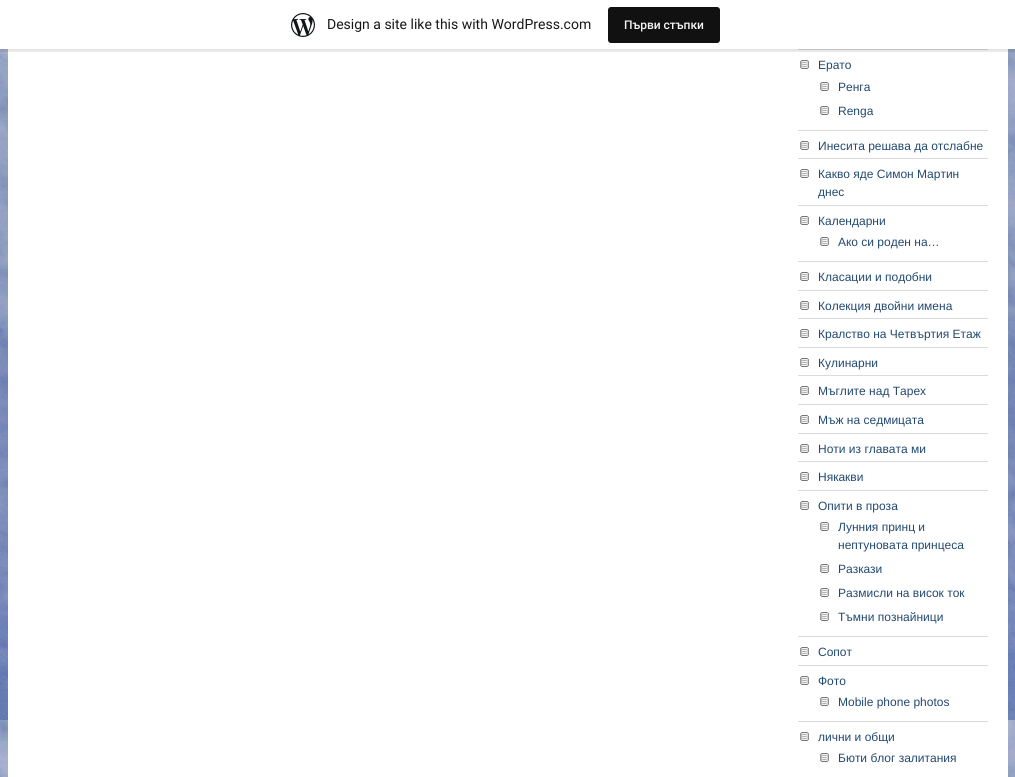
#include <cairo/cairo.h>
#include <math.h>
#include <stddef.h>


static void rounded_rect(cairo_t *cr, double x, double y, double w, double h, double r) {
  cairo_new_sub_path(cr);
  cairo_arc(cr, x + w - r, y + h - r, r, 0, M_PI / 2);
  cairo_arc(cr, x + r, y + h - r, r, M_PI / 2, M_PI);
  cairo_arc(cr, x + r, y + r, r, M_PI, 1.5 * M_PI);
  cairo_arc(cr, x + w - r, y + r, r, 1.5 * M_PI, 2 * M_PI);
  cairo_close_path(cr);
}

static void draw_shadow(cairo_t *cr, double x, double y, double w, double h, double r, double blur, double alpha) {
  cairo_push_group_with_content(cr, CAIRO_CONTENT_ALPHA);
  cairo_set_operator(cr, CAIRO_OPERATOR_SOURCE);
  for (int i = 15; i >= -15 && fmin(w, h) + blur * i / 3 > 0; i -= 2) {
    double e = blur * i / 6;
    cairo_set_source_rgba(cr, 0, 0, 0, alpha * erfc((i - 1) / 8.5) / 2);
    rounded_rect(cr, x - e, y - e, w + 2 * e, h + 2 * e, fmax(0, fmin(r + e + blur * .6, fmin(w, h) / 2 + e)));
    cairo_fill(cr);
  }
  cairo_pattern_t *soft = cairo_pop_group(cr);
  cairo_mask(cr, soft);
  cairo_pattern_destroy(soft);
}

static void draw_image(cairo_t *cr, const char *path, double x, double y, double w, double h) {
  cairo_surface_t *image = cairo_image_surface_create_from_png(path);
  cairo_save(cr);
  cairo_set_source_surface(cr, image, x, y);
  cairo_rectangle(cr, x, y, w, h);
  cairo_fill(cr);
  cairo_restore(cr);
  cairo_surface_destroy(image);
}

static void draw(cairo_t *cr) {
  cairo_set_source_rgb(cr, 1, 1, 1);
  cairo_paint(cr);
  draw_image(cr, "images/1.png", 0, 49, 1015, 728);
  cairo_set_source_rgb(cr, 1, 1, 1);
  cairo_rectangle(cr, 8, 49, 1000, 728);
  cairo_fill(cr);
  cairo_set_source_rgb(cr, 218 / 255.0, 218 / 255.0, 218 / 255.0);
  cairo_rectangle(cr, 798, 49, 190, 1);
  cairo_fill(cr);
  cairo_set_source_rgb(cr, 0, 0, 0);
  draw_shadow(cr, 0, 1, 1015, 49, 0, 1, 0.05);
  cairo_set_source_rgba(cr, 0, 0, 0, 0.08);
  cairo_new_path(cr);
  cairo_move_to(cr, 1, 49);
  cairo_line_to(cr, 1, 52);
  cairo_line_to(cr, 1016, 52);
  cairo_line_to(cr, 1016, 3);
  cairo_line_to(cr, 1015, 3);
  cairo_line_to(cr, 1015, 49);
  cairo_close_path(cr);
  cairo_fill(cr);
  cairo_set_source_rgb(cr, 1, 1, 1);
  cairo_rectangle(cr, 0, 0, 1015, 49);
  cairo_fill(cr);
  draw_image(cr, "images/2.png", 291, 13, 24, 24);
  cairo_set_source_rgb(cr, 17 / 255.0, 17 / 255.0, 17 / 255.0);
  rounded_rect(cr, 608, 7, 112, 36, 3);
  cairo_fill(cr);
  draw_image(cr, "images/3.png", 800, 60, 9, 9);
  cairo_set_source_rgb(cr, 218 / 255.0, 218 / 255.0, 218 / 255.0);
  cairo_rectangle(cr, 798, 130, 190, 1);
  cairo_fill(cr);
  draw_image(cr, "images/3.png", 820, 82, 9, 9);
  draw_image(cr, "images/3.png", 820, 106, 9, 9);
  draw_image(cr, "images/3.png", 800, 141, 9, 9);
  cairo_rectangle(cr, 798, 158, 190, 1);
  cairo_fill(cr);
  draw_image(cr, "images/3.png", 800, 169, 9, 9);
  cairo_rectangle(cr, 798, 205, 190, 1);
  cairo_fill(cr);
  draw_image(cr, "images/3.png", 800, 216, 9, 9);
  cairo_rectangle(cr, 798, 261, 190, 1);
  cairo_fill(cr);
  draw_image(cr, "images/3.png", 820, 237, 9, 9);
  draw_image(cr, "images/3.png", 800, 272, 9, 9);
  cairo_rectangle(cr, 798, 290, 190, 1);
  cairo_fill(cr);
  draw_image(cr, "images/3.png", 800, 301, 9, 9);
  cairo_rectangle(cr, 798, 318, 190, 1);
  cairo_fill(cr);
  draw_image(cr, "images/3.png", 800, 329, 9, 9);
  cairo_rectangle(cr, 798, 347, 190, 1);
  cairo_fill(cr);
  draw_image(cr, "images/3.png", 800, 358, 9, 9);
  cairo_rectangle(cr, 798, 375, 190, 1);
  cairo_fill(cr);
  draw_image(cr, "images/3.png", 800, 386, 9, 9);
  cairo_rectangle(cr, 798, 404, 190, 1);
  cairo_fill(cr);
  draw_image(cr, "images/3.png", 800, 415, 9, 9);
  cairo_rectangle(cr, 798, 433, 190, 1);
  cairo_fill(cr);
  draw_image(cr, "images/3.png", 800, 444, 9, 9);
  cairo_rectangle(cr, 798, 461, 190, 1);
  cairo_fill(cr);
  draw_image(cr, "images/3.png", 800, 472, 9, 9);
  cairo_rectangle(cr, 798, 490, 190, 1);
  cairo_fill(cr);
  draw_image(cr, "images/3.png", 800, 501, 9, 9);
  cairo_rectangle(cr, 798, 636, 190, 1);
  cairo_fill(cr);
  draw_image(cr, "images/3.png", 820, 522, 9, 9);
  draw_image(cr, "images/3.png", 820, 564, 9, 9);
  draw_image(cr, "images/3.png", 820, 588, 9, 9);
  draw_image(cr, "images/3.png", 820, 612, 9, 9);
  draw_image(cr, "images/3.png", 800, 647, 9, 9);
  cairo_rectangle(cr, 798, 665, 190, 1);
  cairo_fill(cr);
  draw_image(cr, "images/3.png", 800, 676, 9, 9);
  cairo_rectangle(cr, 798, 721, 190, 1);
  cairo_fill(cr);
  draw_image(cr, "images/3.png", 820, 697, 9, 9);
  draw_image(cr, "images/3.png", 800, 732, 9, 9);
  draw_image(cr, "images/3.png", 820, 753, 9, 9);
  cairo_select_font_face(cr, "Roboto", CAIRO_FONT_SLANT_NORMAL, CAIRO_FONT_WEIGHT_NORMAL);
  cairo_set_font_size(cr, 14);
  cairo_set_source_rgb(cr, 23 / 255.0, 23 / 255.0, 23 / 255.0);
  cairo_move_to(cr, 327, 29);
  cairo_show_text(cr, "Design a site like this with WordPress.com");
  cairo_select_font_face(cr, "Roboto Medium", CAIRO_FONT_SLANT_NORMAL, CAIRO_FONT_WEIGHT_NORMAL);
  cairo_set_font_size(cr, 12);
  cairo_set_source_rgb(cr, 246 / 255.0, 247 / 255.0, 247 / 255.0);
  cairo_move_to(cr, 624, 29);
  cairo_show_text(cr, "Първи стъпки");
  cairo_select_font_face(cr, "Liberation Sans", CAIRO_FONT_SLANT_NORMAL, CAIRO_FONT_WEIGHT_NORMAL);
  cairo_set_source_rgb(cr, 34 / 255.0, 73 / 255.0, 112 / 255.0);
  cairo_move_to(cr, 818, 69);
  cairo_show_text(cr, "Ерато");
  cairo_move_to(cr, 838, 91);
  cairo_show_text(cr, "Ренга");
  cairo_move_to(cr, 838, 115);
  cairo_show_text(cr, "Renga");
  cairo_move_to(cr, 818, 150);
  cairo_show_text(cr, "Инесита решава да отслабне");
  cairo_move_to(cr, 818, 178);
  cairo_show_text(cr, "Какво яде Симон Мартин");
  cairo_move_to(cr, 818, 196);
  cairo_show_text(cr, "днес");
  cairo_move_to(cr, 818, 225);
  cairo_show_text(cr, "Календарни");
  cairo_move_to(cr, 838, 246);
  cairo_show_text(cr, "Ако си роден на…");
  cairo_move_to(cr, 818, 281);
  cairo_show_text(cr, "Класации и подобни");
  cairo_move_to(cr, 818, 310);
  cairo_show_text(cr, "Колекция двойни имена");
  cairo_move_to(cr, 818, 338);
  cairo_show_text(cr, "Кралство на Четвъртия Етаж");
  cairo_move_to(cr, 818, 367);
  cairo_show_text(cr, "Кулинарни");
  cairo_move_to(cr, 818, 395);
  cairo_show_text(cr, "Мъглите над Тарех");
  cairo_move_to(cr, 818, 424);
  cairo_show_text(cr, "Мъж на седмицата");
  cairo_move_to(cr, 818, 453);
  cairo_show_text(cr, "Ноти из главата ми");
  cairo_move_to(cr, 818, 481);
  cairo_show_text(cr, "Някакви");
  cairo_move_to(cr, 818, 510);
  cairo_show_text(cr, "Опити в проза");
  cairo_move_to(cr, 838, 531);
  cairo_show_text(cr, "Лунния принц и");
  cairo_move_to(cr, 838, 549);
  cairo_show_text(cr, "нептуновата принцеса");
  cairo_move_to(cr, 838, 573);
  cairo_show_text(cr, "Разкази");
  cairo_move_to(cr, 838, 597);
  cairo_show_text(cr, "Размисли на висок ток");
  cairo_move_to(cr, 838, 621);
  cairo_show_text(cr, "Тъмни познайници");
  cairo_move_to(cr, 818, 656);
  cairo_show_text(cr, "Сопот");
  cairo_move_to(cr, 818, 685);
  cairo_show_text(cr, "Фото");
  cairo_move_to(cr, 838, 706);
  cairo_show_text(cr, "Mobile phone photos");
  cairo_move_to(cr, 818, 741);
  cairo_show_text(cr, "лични и общи");
  cairo_move_to(cr, 838, 762);
  cairo_show_text(cr, "Бюти блог залитания");
}

int main(void) {
  cairo_surface_t *surface = cairo_image_surface_create(CAIRO_FORMAT_RGB24, 1015, 777);
  cairo_t *cr = cairo_create(surface);
  cairo_font_options_t *options = cairo_font_options_create();
  cairo_font_options_set_hint_metrics(options, CAIRO_HINT_METRICS_OFF);
  cairo_font_options_set_hint_style(options, CAIRO_HINT_STYLE_NONE);
  cairo_set_font_options(cr, options);
  cairo_set_miter_limit(cr, 4);
  draw(cr);
  cairo_surface_write_to_png(surface, "out.png");
  cairo_font_options_destroy(options);
  cairo_destroy(cr);
  cairo_surface_destroy(surface);
  return 0;
}
